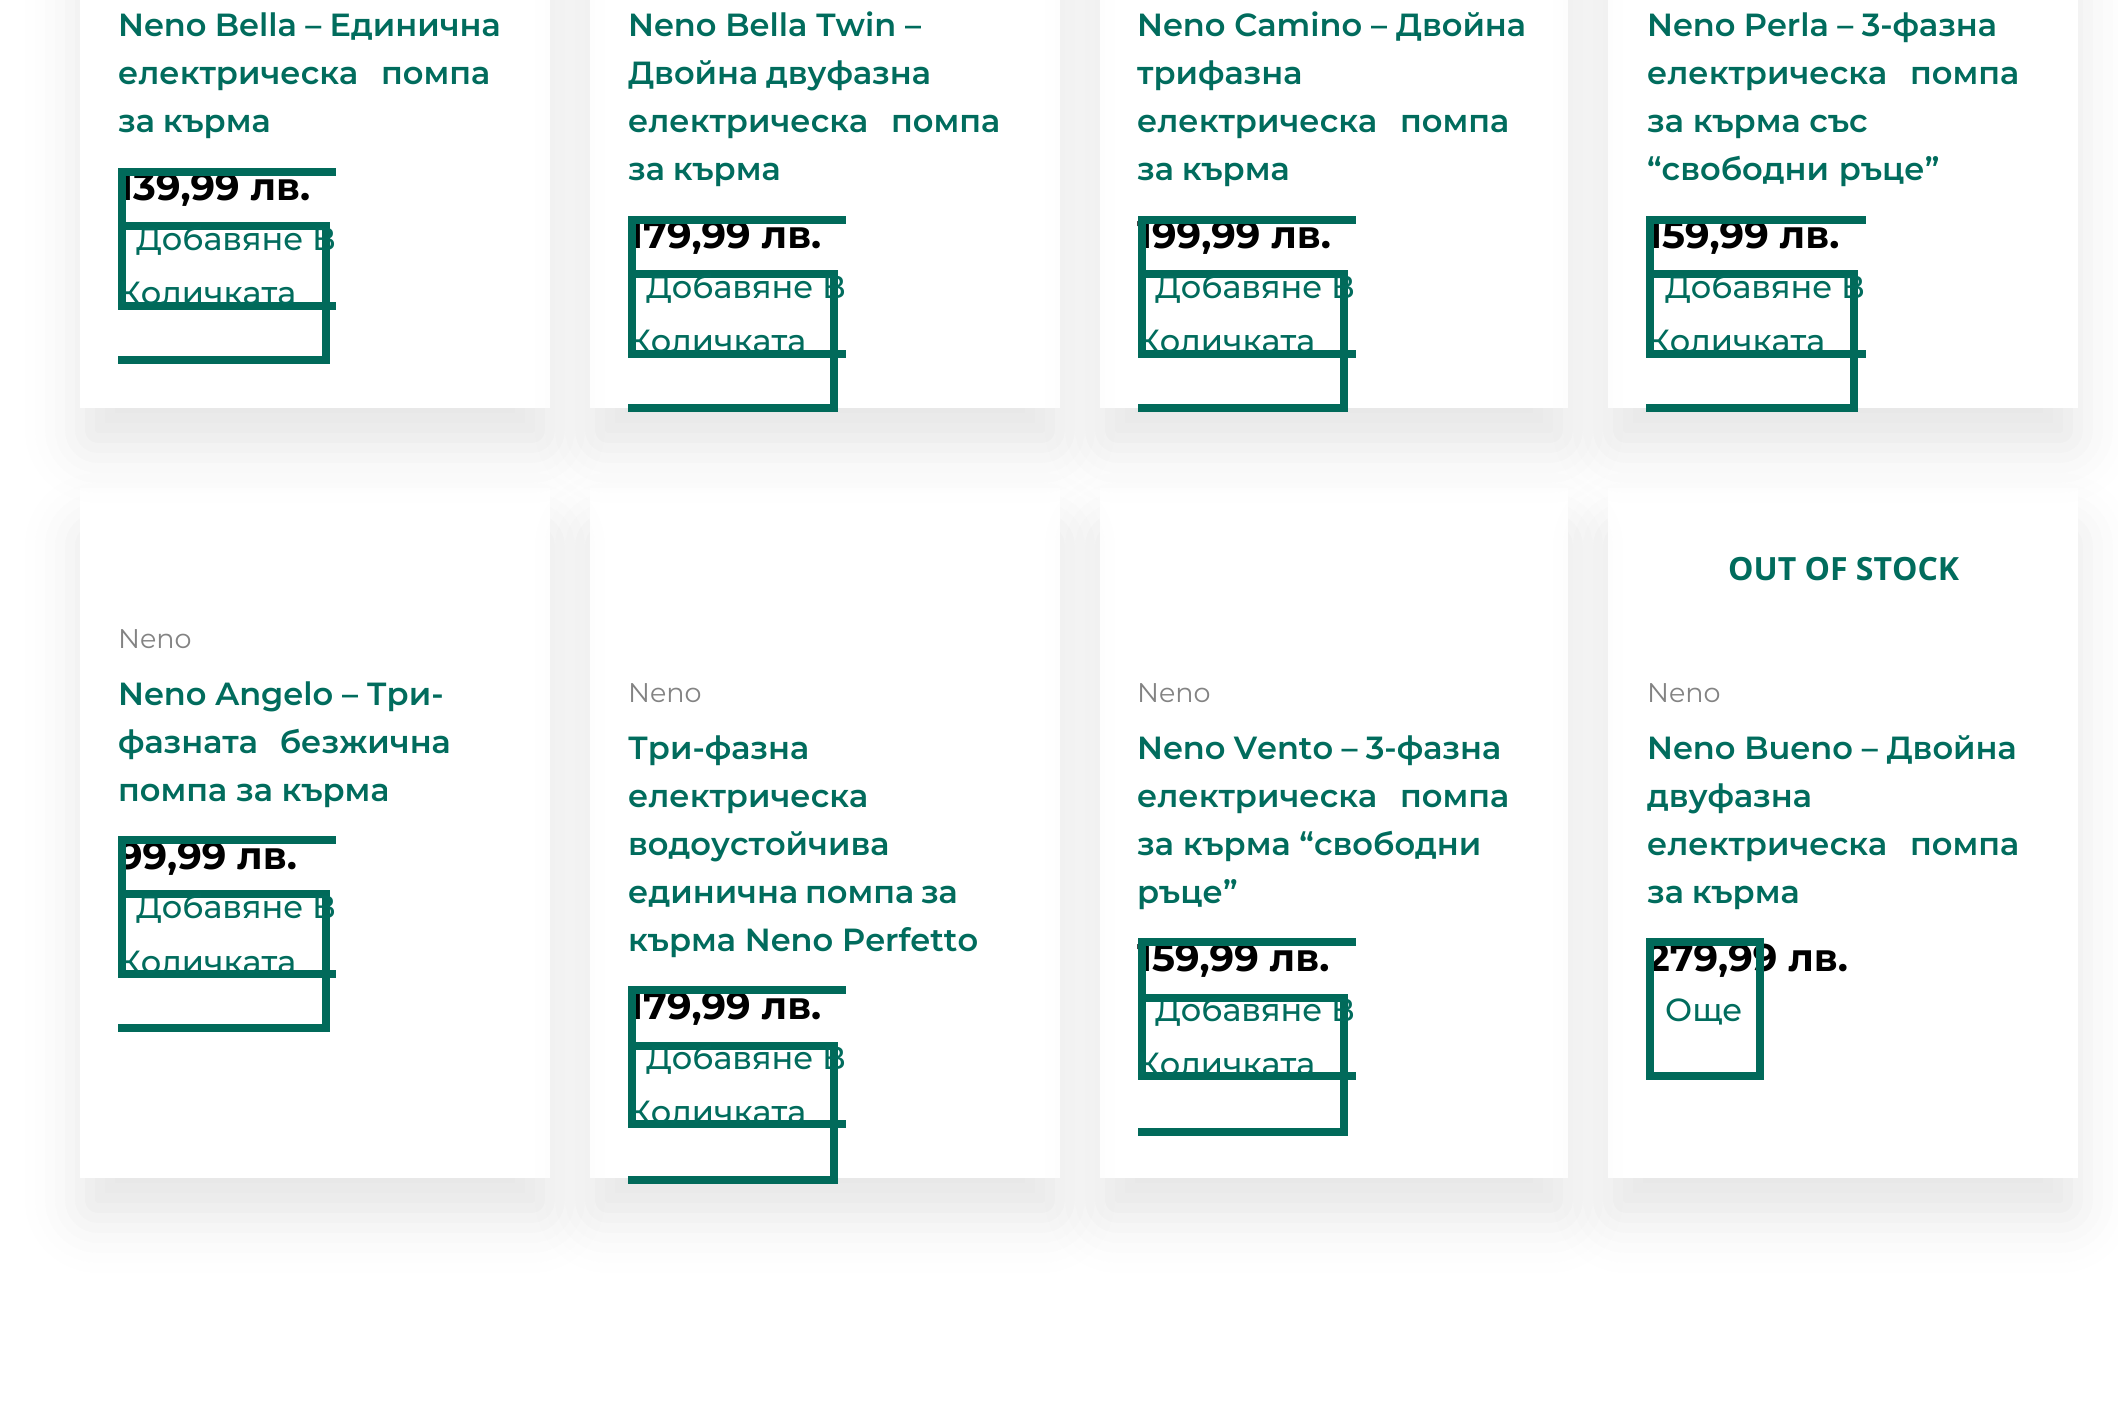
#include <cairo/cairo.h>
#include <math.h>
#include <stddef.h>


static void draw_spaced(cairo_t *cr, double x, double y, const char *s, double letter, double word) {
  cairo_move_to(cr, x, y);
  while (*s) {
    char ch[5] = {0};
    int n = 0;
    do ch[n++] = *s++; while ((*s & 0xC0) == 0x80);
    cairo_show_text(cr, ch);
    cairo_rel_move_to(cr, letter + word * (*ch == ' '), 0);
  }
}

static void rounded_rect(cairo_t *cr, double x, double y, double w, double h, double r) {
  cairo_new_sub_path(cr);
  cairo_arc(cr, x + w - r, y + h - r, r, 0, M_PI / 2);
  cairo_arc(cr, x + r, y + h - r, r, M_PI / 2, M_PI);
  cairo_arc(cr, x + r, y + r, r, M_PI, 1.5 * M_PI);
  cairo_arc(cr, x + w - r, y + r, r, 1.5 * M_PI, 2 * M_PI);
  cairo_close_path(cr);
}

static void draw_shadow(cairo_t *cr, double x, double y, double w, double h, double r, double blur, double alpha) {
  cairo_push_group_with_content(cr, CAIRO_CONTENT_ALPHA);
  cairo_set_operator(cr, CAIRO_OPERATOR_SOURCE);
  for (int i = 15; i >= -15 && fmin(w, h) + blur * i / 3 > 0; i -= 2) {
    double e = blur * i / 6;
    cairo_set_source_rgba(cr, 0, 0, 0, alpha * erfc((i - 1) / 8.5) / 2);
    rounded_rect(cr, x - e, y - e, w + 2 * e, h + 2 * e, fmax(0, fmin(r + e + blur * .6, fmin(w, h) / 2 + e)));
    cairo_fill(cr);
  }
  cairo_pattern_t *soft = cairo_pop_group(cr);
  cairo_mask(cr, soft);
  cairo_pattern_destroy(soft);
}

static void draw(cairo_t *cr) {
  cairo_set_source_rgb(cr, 1, 1, 1);
  cairo_paint(cr);
  cairo_save(cr);
  cairo_set_fill_rule(cr, CAIRO_FILL_RULE_EVEN_ODD);
  cairo_new_path(cr);
  cairo_move_to(cr, 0, 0);
  cairo_line_to(cr, 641, 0);
  cairo_line_to(cr, 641, 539);
  cairo_line_to(cr, 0, 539);
  cairo_close_path(cr);
  cairo_move_to(cr, 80, -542);
  cairo_line_to(cr, 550, -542);
  cairo_line_to(cr, 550, 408);
  cairo_line_to(cr, 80, 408);
  cairo_close_path(cr);
  cairo_clip(cr);
  cairo_set_source_rgb(cr, 0, 0, 0);
  draw_shadow(cr, 80, -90, 470, 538, 0, 30, 0.1);
  cairo_restore(cr);
  cairo_set_source_rgb(cr, 1 / 255.0, 106 / 255.0, 90 / 255.0);
  cairo_rectangle(cr, 118, 302, 218, 8);
  cairo_fill(cr);
  cairo_save(cr);
  cairo_set_fill_rule(cr, CAIRO_FILL_RULE_EVEN_ODD);
  cairo_new_path(cr);
  cairo_move_to(cr, 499, 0);
  cairo_line_to(cr, 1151, 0);
  cairo_line_to(cr, 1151, 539);
  cairo_line_to(cr, 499, 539);
  cairo_close_path(cr);
  cairo_move_to(cr, 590, -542);
  cairo_line_to(cr, 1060, -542);
  cairo_line_to(cr, 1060, 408);
  cairo_line_to(cr, 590, 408);
  cairo_close_path(cr);
  cairo_clip(cr);
  cairo_set_source_rgb(cr, 0, 0, 0);
  draw_shadow(cr, 590, -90, 470, 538, 0, 30, 0.1);
  cairo_restore(cr);
  cairo_rectangle(cr, 628, 350, 218, 8);
  cairo_fill(cr);
  cairo_save(cr);
  cairo_set_fill_rule(cr, CAIRO_FILL_RULE_EVEN_ODD);
  cairo_new_path(cr);
  cairo_move_to(cr, 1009, 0);
  cairo_line_to(cr, 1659, 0);
  cairo_line_to(cr, 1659, 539);
  cairo_line_to(cr, 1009, 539);
  cairo_close_path(cr);
  cairo_move_to(cr, 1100, -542);
  cairo_line_to(cr, 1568, -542);
  cairo_line_to(cr, 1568, 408);
  cairo_line_to(cr, 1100, 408);
  cairo_close_path(cr);
  cairo_clip(cr);
  cairo_set_source_rgb(cr, 0, 0, 0);
  draw_shadow(cr, 1100, -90, 468, 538, 0, 30, 0.1);
  cairo_restore(cr);
  cairo_rectangle(cr, 1138, 350, 218, 8);
  cairo_fill(cr);
  cairo_save(cr);
  cairo_set_fill_rule(cr, CAIRO_FILL_RULE_EVEN_ODD);
  cairo_new_path(cr);
  cairo_move_to(cr, 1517, 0);
  cairo_line_to(cr, 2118, 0);
  cairo_line_to(cr, 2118, 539);
  cairo_line_to(cr, 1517, 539);
  cairo_close_path(cr);
  cairo_move_to(cr, 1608, -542);
  cairo_line_to(cr, 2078, -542);
  cairo_line_to(cr, 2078, 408);
  cairo_line_to(cr, 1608, 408);
  cairo_close_path(cr);
  cairo_clip(cr);
  cairo_set_source_rgb(cr, 0, 0, 0);
  draw_shadow(cr, 1608, -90, 470, 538, 0, 30, 0.1);
  cairo_restore(cr);
  cairo_rectangle(cr, 1646, 350, 220, 8);
  cairo_fill(cr);
  cairo_save(cr);
  cairo_set_fill_rule(cr, CAIRO_FILL_RULE_EVEN_ODD);
  cairo_new_path(cr);
  cairo_move_to(cr, 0, 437);
  cairo_line_to(cr, 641, 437);
  cairo_line_to(cr, 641, 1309);
  cairo_line_to(cr, 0, 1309);
  cairo_close_path(cr);
  cairo_move_to(cr, 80, 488);
  cairo_line_to(cr, 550, 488);
  cairo_line_to(cr, 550, 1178);
  cairo_line_to(cr, 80, 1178);
  cairo_close_path(cr);
  cairo_clip(cr);
  cairo_set_source_rgb(cr, 0, 0, 0);
  draw_shadow(cr, 80, 528, 470, 690, 0, 30, 0.1);
  cairo_restore(cr);
  cairo_rectangle(cr, 118, 970, 218, 8);
  cairo_fill(cr);
  cairo_save(cr);
  cairo_set_fill_rule(cr, CAIRO_FILL_RULE_EVEN_ODD);
  cairo_new_path(cr);
  cairo_move_to(cr, 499, 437);
  cairo_line_to(cr, 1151, 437);
  cairo_line_to(cr, 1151, 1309);
  cairo_line_to(cr, 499, 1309);
  cairo_close_path(cr);
  cairo_move_to(cr, 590, 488);
  cairo_line_to(cr, 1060, 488);
  cairo_line_to(cr, 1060, 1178);
  cairo_line_to(cr, 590, 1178);
  cairo_close_path(cr);
  cairo_clip(cr);
  cairo_set_source_rgb(cr, 0, 0, 0);
  draw_shadow(cr, 590, 528, 470, 690, 0, 30, 0.1);
  cairo_restore(cr);
  cairo_rectangle(cr, 628, 1120, 218, 8);
  cairo_fill(cr);
  cairo_save(cr);
  cairo_set_fill_rule(cr, CAIRO_FILL_RULE_EVEN_ODD);
  cairo_new_path(cr);
  cairo_move_to(cr, 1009, 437);
  cairo_line_to(cr, 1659, 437);
  cairo_line_to(cr, 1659, 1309);
  cairo_line_to(cr, 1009, 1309);
  cairo_close_path(cr);
  cairo_move_to(cr, 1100, 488);
  cairo_line_to(cr, 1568, 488);
  cairo_line_to(cr, 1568, 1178);
  cairo_line_to(cr, 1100, 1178);
  cairo_close_path(cr);
  cairo_clip(cr);
  cairo_set_source_rgb(cr, 0, 0, 0);
  draw_shadow(cr, 1100, 528, 468, 690, 0, 30, 0.1);
  cairo_restore(cr);
  cairo_rectangle(cr, 1138, 1072, 218, 8);
  cairo_fill(cr);
  cairo_save(cr);
  cairo_set_fill_rule(cr, CAIRO_FILL_RULE_EVEN_ODD);
  cairo_new_path(cr);
  cairo_move_to(cr, 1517, 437);
  cairo_line_to(cr, 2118, 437);
  cairo_line_to(cr, 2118, 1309);
  cairo_line_to(cr, 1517, 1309);
  cairo_close_path(cr);
  cairo_move_to(cr, 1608, 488);
  cairo_line_to(cr, 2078, 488);
  cairo_line_to(cr, 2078, 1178);
  cairo_line_to(cr, 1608, 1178);
  cairo_close_path(cr);
  cairo_clip(cr);
  cairo_set_source_rgb(cr, 0, 0, 0);
  draw_shadow(cr, 1608, 528, 470, 690, 0, 30, 0.1);
  cairo_restore(cr);
  cairo_select_font_face(cr, "Montserrat SemiBold", CAIRO_FONT_SLANT_NORMAL, CAIRO_FONT_WEIGHT_NORMAL);
  cairo_set_font_size(cr, 32);
  cairo_set_source_rgb(cr, 1 / 255.0, 108 / 255.0, 93 / 255.0);
  draw_spaced(cr, 118, 36, "Neno Bella – Eдинична", 0, -0.5);
  draw_spaced(cr, 118, 84, "електрическа помпа", 0, 14);
  draw_spaced(cr, 118, 132, "за кърма", 0, -1);
  cairo_select_font_face(cr, "Montserrat", CAIRO_FONT_SLANT_NORMAL, CAIRO_FONT_WEIGHT_BOLD);
  cairo_set_font_size(cr, 38.5);
  cairo_set_source_rgb(cr, 0, 0, 0);
  cairo_move_to(cr, 118, 200);
  cairo_show_text(cr, "139,99 лв.");
  cairo_set_source_rgb(cr, 1 / 255.0, 106 / 255.0, 90 / 255.0);
  cairo_rectangle(cr, 118, 168, 218, 8);
  cairo_fill(cr);
  cairo_rectangle(cr, 118, 168, 8, 142);
  cairo_fill(cr);
  cairo_rectangle(cr, 118, 222, 212, 8);
  cairo_fill(cr);
  cairo_select_font_face(cr, "Montserrat Medium", CAIRO_FONT_SLANT_NORMAL, CAIRO_FONT_WEIGHT_NORMAL);
  cairo_set_font_size(cr, 32);
  cairo_set_source_rgb(cr, 1 / 255.0, 108 / 255.0, 93 / 255.0);
  cairo_move_to(cr, 118, 304);
  cairo_show_text(cr, "Количката");
  cairo_set_source_rgb(cr, 1 / 255.0, 106 / 255.0, 90 / 255.0);
  cairo_rectangle(cr, 322, 222, 8, 142);
  cairo_fill(cr);
  cairo_set_source_rgb(cr, 1 / 255.0, 108 / 255.0, 93 / 255.0);
  cairo_move_to(cr, 136, 250);
  cairo_show_text(cr, "Добавяне В");
  cairo_set_source_rgb(cr, 1 / 255.0, 106 / 255.0, 90 / 255.0);
  cairo_rectangle(cr, 118, 356, 212, 8);
  cairo_fill(cr);
  cairo_select_font_face(cr, "Montserrat SemiBold", CAIRO_FONT_SLANT_NORMAL, CAIRO_FONT_WEIGHT_NORMAL);
  cairo_set_source_rgb(cr, 1 / 255.0, 108 / 255.0, 93 / 255.0);
  cairo_move_to(cr, 628, 36);
  cairo_show_text(cr, "Neno Bella Twin –");
  draw_spaced(cr, 628, 84, "Двойна двуфазна", 0, -1);
  draw_spaced(cr, 628, 132, "електрическа помпа", 0, 14);
  draw_spaced(cr, 628, 180, "за кърма", 0, -1);
  cairo_select_font_face(cr, "Montserrat", CAIRO_FONT_SLANT_NORMAL, CAIRO_FONT_WEIGHT_BOLD);
  cairo_set_font_size(cr, 38.5);
  cairo_set_source_rgb(cr, 0, 0, 0);
  cairo_move_to(cr, 628, 248);
  cairo_show_text(cr, "179,99 лв.");
  cairo_set_source_rgb(cr, 1 / 255.0, 106 / 255.0, 90 / 255.0);
  cairo_rectangle(cr, 628, 216, 218, 8);
  cairo_fill(cr);
  cairo_rectangle(cr, 628, 216, 8, 142);
  cairo_fill(cr);
  cairo_rectangle(cr, 628, 270, 210, 8);
  cairo_fill(cr);
  cairo_select_font_face(cr, "Montserrat Medium", CAIRO_FONT_SLANT_NORMAL, CAIRO_FONT_WEIGHT_NORMAL);
  cairo_set_font_size(cr, 32);
  cairo_set_source_rgb(cr, 1 / 255.0, 108 / 255.0, 93 / 255.0);
  cairo_move_to(cr, 628, 352);
  cairo_show_text(cr, "Количката");
  cairo_set_source_rgb(cr, 1 / 255.0, 106 / 255.0, 90 / 255.0);
  cairo_rectangle(cr, 830, 270, 8, 142);
  cairo_fill(cr);
  cairo_set_source_rgb(cr, 1 / 255.0, 108 / 255.0, 93 / 255.0);
  cairo_move_to(cr, 646, 298);
  cairo_show_text(cr, "Добавяне В");
  cairo_set_source_rgb(cr, 1 / 255.0, 106 / 255.0, 90 / 255.0);
  cairo_rectangle(cr, 628, 404, 210, 8);
  cairo_fill(cr);
  cairo_select_font_face(cr, "Montserrat SemiBold", CAIRO_FONT_SLANT_NORMAL, CAIRO_FONT_WEIGHT_NORMAL);
  cairo_set_source_rgb(cr, 1 / 255.0, 108 / 255.0, 93 / 255.0);
  cairo_move_to(cr, 1137, 36);
  cairo_show_text(cr, "Neno Camino – Двойна");
  cairo_move_to(cr, 1137, 84);
  cairo_show_text(cr, "трифазна");
  draw_spaced(cr, 1137, 132, "електрическа помпа", 0, 14);
  draw_spaced(cr, 1137, 180, "за кърма", 0, -1);
  cairo_select_font_face(cr, "Montserrat", CAIRO_FONT_SLANT_NORMAL, CAIRO_FONT_WEIGHT_BOLD);
  cairo_set_font_size(cr, 38.5);
  cairo_set_source_rgb(cr, 0, 0, 0);
  cairo_move_to(cr, 1137, 248);
  cairo_show_text(cr, "199,99 лв.");
  cairo_set_source_rgb(cr, 1 / 255.0, 106 / 255.0, 90 / 255.0);
  cairo_rectangle(cr, 1138, 216, 218, 8);
  cairo_fill(cr);
  cairo_rectangle(cr, 1138, 216, 8, 142);
  cairo_fill(cr);
  cairo_rectangle(cr, 1138, 270, 210, 8);
  cairo_fill(cr);
  cairo_select_font_face(cr, "Montserrat Medium", CAIRO_FONT_SLANT_NORMAL, CAIRO_FONT_WEIGHT_NORMAL);
  cairo_set_font_size(cr, 32);
  cairo_set_source_rgb(cr, 1 / 255.0, 108 / 255.0, 93 / 255.0);
  cairo_move_to(cr, 1137, 352);
  cairo_show_text(cr, "Количката");
  cairo_set_source_rgb(cr, 1 / 255.0, 106 / 255.0, 90 / 255.0);
  cairo_rectangle(cr, 1340, 270, 8, 142);
  cairo_fill(cr);
  cairo_set_source_rgb(cr, 1 / 255.0, 108 / 255.0, 93 / 255.0);
  cairo_move_to(cr, 1155, 298);
  cairo_show_text(cr, "Добавяне В");
  cairo_set_source_rgb(cr, 1 / 255.0, 106 / 255.0, 90 / 255.0);
  cairo_rectangle(cr, 1138, 404, 210, 8);
  cairo_fill(cr);
  cairo_select_font_face(cr, "Montserrat SemiBold", CAIRO_FONT_SLANT_NORMAL, CAIRO_FONT_WEIGHT_NORMAL);
  cairo_set_source_rgb(cr, 1 / 255.0, 108 / 255.0, 93 / 255.0);
  draw_spaced(cr, 1647, 36, "Neno Perla – 3-фазна", 0, -0.5);
  draw_spaced(cr, 1647, 84, "електрическа помпа", 0, 14);
  cairo_move_to(cr, 1647, 132);
  cairo_show_text(cr, "за кърма със");
  draw_spaced(cr, 1647, 180, "“свободни ръце”", 0, 1);
  cairo_select_font_face(cr, "Montserrat", CAIRO_FONT_SLANT_NORMAL, CAIRO_FONT_WEIGHT_BOLD);
  cairo_set_font_size(cr, 38.5);
  cairo_set_source_rgb(cr, 0, 0, 0);
  cairo_move_to(cr, 1647, 248);
  cairo_show_text(cr, "159,99 лв.");
  cairo_set_source_rgb(cr, 1 / 255.0, 106 / 255.0, 90 / 255.0);
  cairo_rectangle(cr, 1646, 216, 220, 8);
  cairo_fill(cr);
  cairo_rectangle(cr, 1646, 216, 8, 142);
  cairo_fill(cr);
  cairo_rectangle(cr, 1646, 270, 212, 8);
  cairo_fill(cr);
  cairo_select_font_face(cr, "Montserrat Medium", CAIRO_FONT_SLANT_NORMAL, CAIRO_FONT_WEIGHT_NORMAL);
  cairo_set_font_size(cr, 32);
  cairo_set_source_rgb(cr, 1 / 255.0, 108 / 255.0, 93 / 255.0);
  cairo_move_to(cr, 1647, 352);
  cairo_show_text(cr, "Количката");
  cairo_set_source_rgb(cr, 1 / 255.0, 106 / 255.0, 90 / 255.0);
  cairo_rectangle(cr, 1850, 270, 8, 142);
  cairo_fill(cr);
  cairo_set_source_rgb(cr, 1 / 255.0, 108 / 255.0, 93 / 255.0);
  cairo_move_to(cr, 1665, 298);
  cairo_show_text(cr, "Добавяне В");
  cairo_set_source_rgb(cr, 1 / 255.0, 106 / 255.0, 90 / 255.0);
  cairo_rectangle(cr, 1646, 404, 212, 8);
  cairo_fill(cr);
  cairo_select_font_face(cr, "Montserrat", CAIRO_FONT_SLANT_NORMAL, CAIRO_FONT_WEIGHT_NORMAL);
  cairo_set_font_size(cr, 27);
  cairo_set_source_rgb(cr, 131 / 255.0, 131 / 255.0, 131 / 255.0);
  cairo_move_to(cr, 118, 648);
  cairo_show_text(cr, "Neno");
  cairo_select_font_face(cr, "Montserrat SemiBold", CAIRO_FONT_SLANT_NORMAL, CAIRO_FONT_WEIGHT_NORMAL);
  cairo_set_font_size(cr, 32);
  cairo_set_source_rgb(cr, 1 / 255.0, 108 / 255.0, 93 / 255.0);
  cairo_move_to(cr, 118, 705);
  cairo_show_text(cr, "Neno Angelo – Три-");
  draw_spaced(cr, 118, 753, "фазната безжична", 0, 13);
  cairo_move_to(cr, 118, 801);
  cairo_show_text(cr, "помпа за кърма");
  cairo_select_font_face(cr, "Montserrat", CAIRO_FONT_SLANT_NORMAL, CAIRO_FONT_WEIGHT_BOLD);
  cairo_set_font_size(cr, 38.5);
  cairo_set_source_rgb(cr, 0, 0, 0);
  cairo_move_to(cr, 118, 869);
  cairo_show_text(cr, "99,99 лв.");
  cairo_set_source_rgb(cr, 1 / 255.0, 106 / 255.0, 90 / 255.0);
  cairo_rectangle(cr, 118, 836, 218, 8);
  cairo_fill(cr);
  cairo_rectangle(cr, 118, 836, 8, 142);
  cairo_fill(cr);
  cairo_rectangle(cr, 118, 890, 212, 8);
  cairo_fill(cr);
  cairo_select_font_face(cr, "Montserrat Medium", CAIRO_FONT_SLANT_NORMAL, CAIRO_FONT_WEIGHT_NORMAL);
  cairo_set_font_size(cr, 32);
  cairo_set_source_rgb(cr, 1 / 255.0, 108 / 255.0, 93 / 255.0);
  cairo_move_to(cr, 118, 973);
  cairo_show_text(cr, "Количката");
  cairo_set_source_rgb(cr, 1 / 255.0, 106 / 255.0, 90 / 255.0);
  cairo_rectangle(cr, 322, 890, 8, 142);
  cairo_fill(cr);
  cairo_set_source_rgb(cr, 1 / 255.0, 108 / 255.0, 93 / 255.0);
  cairo_move_to(cr, 136, 918);
  cairo_show_text(cr, "Добавяне В");
  cairo_set_source_rgb(cr, 1 / 255.0, 106 / 255.0, 90 / 255.0);
  cairo_rectangle(cr, 118, 1024, 212, 8);
  cairo_fill(cr);
  cairo_select_font_face(cr, "Montserrat", CAIRO_FONT_SLANT_NORMAL, CAIRO_FONT_WEIGHT_NORMAL);
  cairo_set_font_size(cr, 27);
  cairo_set_source_rgb(cr, 131 / 255.0, 131 / 255.0, 131 / 255.0);
  cairo_move_to(cr, 628, 702);
  cairo_show_text(cr, "Neno");
  cairo_select_font_face(cr, "Montserrat SemiBold", CAIRO_FONT_SLANT_NORMAL, CAIRO_FONT_WEIGHT_NORMAL);
  cairo_set_font_size(cr, 32);
  cairo_set_source_rgb(cr, 1 / 255.0, 108 / 255.0, 93 / 255.0);
  cairo_move_to(cr, 628, 759);
  cairo_show_text(cr, "Три-фазна");
  cairo_move_to(cr, 628, 807);
  cairo_show_text(cr, "електрическа");
  cairo_move_to(cr, 628, 855);
  cairo_show_text(cr, "водоустойчива");
  draw_spaced(cr, 628, 903, "единична помпа за", 0, -2);
  cairo_move_to(cr, 628, 951);
  cairo_show_text(cr, "кърма Neno Perfetto");
  cairo_select_font_face(cr, "Montserrat", CAIRO_FONT_SLANT_NORMAL, CAIRO_FONT_WEIGHT_BOLD);
  cairo_set_font_size(cr, 38.5);
  cairo_set_source_rgb(cr, 0, 0, 0);
  cairo_move_to(cr, 628, 1019);
  cairo_show_text(cr, "179,99 лв.");
  cairo_set_source_rgb(cr, 1 / 255.0, 106 / 255.0, 90 / 255.0);
  cairo_rectangle(cr, 628, 986, 218, 8);
  cairo_fill(cr);
  cairo_rectangle(cr, 628, 986, 8, 142);
  cairo_fill(cr);
  cairo_rectangle(cr, 628, 1042, 210, 8);
  cairo_fill(cr);
  cairo_select_font_face(cr, "Montserrat Medium", CAIRO_FONT_SLANT_NORMAL, CAIRO_FONT_WEIGHT_NORMAL);
  cairo_set_font_size(cr, 32);
  cairo_set_source_rgb(cr, 1 / 255.0, 108 / 255.0, 93 / 255.0);
  cairo_move_to(cr, 628, 1123);
  cairo_show_text(cr, "Количката");
  cairo_set_source_rgb(cr, 1 / 255.0, 106 / 255.0, 90 / 255.0);
  cairo_rectangle(cr, 830, 1042, 8, 142);
  cairo_fill(cr);
  cairo_set_source_rgb(cr, 1 / 255.0, 108 / 255.0, 93 / 255.0);
  cairo_move_to(cr, 646, 1069);
  cairo_show_text(cr, "Добавяне В");
  cairo_set_source_rgb(cr, 1 / 255.0, 106 / 255.0, 90 / 255.0);
  cairo_rectangle(cr, 628, 1176, 210, 8);
  cairo_fill(cr);
  cairo_select_font_face(cr, "Montserrat", CAIRO_FONT_SLANT_NORMAL, CAIRO_FONT_WEIGHT_NORMAL);
  cairo_set_font_size(cr, 27);
  cairo_set_source_rgb(cr, 131 / 255.0, 131 / 255.0, 131 / 255.0);
  cairo_move_to(cr, 1137, 702);
  cairo_show_text(cr, "Neno");
  cairo_select_font_face(cr, "Montserrat SemiBold", CAIRO_FONT_SLANT_NORMAL, CAIRO_FONT_WEIGHT_NORMAL);
  cairo_set_font_size(cr, 32);
  cairo_set_source_rgb(cr, 1 / 255.0, 108 / 255.0, 93 / 255.0);
  draw_spaced(cr, 1137, 759, "Neno Vento – 3-фазна", 0, -0.5);
  draw_spaced(cr, 1137, 807, "електрическа помпа", 0, 14);
  cairo_move_to(cr, 1137, 855);
  cairo_show_text(cr, "за кърма “свободни");
  cairo_move_to(cr, 1137, 903);
  cairo_show_text(cr, "ръце”");
  cairo_select_font_face(cr, "Montserrat", CAIRO_FONT_SLANT_NORMAL, CAIRO_FONT_WEIGHT_BOLD);
  cairo_set_font_size(cr, 38.5);
  cairo_set_source_rgb(cr, 0, 0, 0);
  cairo_move_to(cr, 1137, 971);
  cairo_show_text(cr, "159,99 лв.");
  cairo_set_source_rgb(cr, 1 / 255.0, 106 / 255.0, 90 / 255.0);
  cairo_rectangle(cr, 1138, 938, 218, 8);
  cairo_fill(cr);
  cairo_rectangle(cr, 1138, 938, 8, 142);
  cairo_fill(cr);
  cairo_rectangle(cr, 1138, 994, 210, 8);
  cairo_fill(cr);
  cairo_select_font_face(cr, "Montserrat Medium", CAIRO_FONT_SLANT_NORMAL, CAIRO_FONT_WEIGHT_NORMAL);
  cairo_set_font_size(cr, 32);
  cairo_set_source_rgb(cr, 1 / 255.0, 108 / 255.0, 93 / 255.0);
  cairo_move_to(cr, 1137, 1075);
  cairo_show_text(cr, "Количката");
  cairo_set_source_rgb(cr, 1 / 255.0, 106 / 255.0, 90 / 255.0);
  cairo_rectangle(cr, 1340, 994, 8, 142);
  cairo_fill(cr);
  cairo_set_source_rgb(cr, 1 / 255.0, 108 / 255.0, 93 / 255.0);
  cairo_move_to(cr, 1155, 1021);
  cairo_show_text(cr, "Добавяне В");
  cairo_set_source_rgb(cr, 1 / 255.0, 106 / 255.0, 90 / 255.0);
  cairo_rectangle(cr, 1138, 1128, 210, 8);
  cairo_fill(cr);
  cairo_select_font_face(cr, "Open Sans", CAIRO_FONT_SLANT_NORMAL, CAIRO_FONT_WEIGHT_BOLD);
  cairo_set_source_rgb(cr, 1 / 255.0, 108 / 255.0, 93 / 255.0);
  cairo_move_to(cr, 1728, 580);
  cairo_show_text(cr, "OUT OF STOCK");
  cairo_select_font_face(cr, "Montserrat", CAIRO_FONT_SLANT_NORMAL, CAIRO_FONT_WEIGHT_NORMAL);
  cairo_set_font_size(cr, 27);
  cairo_set_source_rgb(cr, 131 / 255.0, 131 / 255.0, 131 / 255.0);
  cairo_move_to(cr, 1647, 702);
  cairo_show_text(cr, "Neno");
  cairo_select_font_face(cr, "Montserrat SemiBold", CAIRO_FONT_SLANT_NORMAL, CAIRO_FONT_WEIGHT_NORMAL);
  cairo_set_font_size(cr, 32);
  cairo_set_source_rgb(cr, 1 / 255.0, 108 / 255.0, 93 / 255.0);
  cairo_move_to(cr, 1647, 759);
  cairo_show_text(cr, "Neno Bueno – Двойна");
  cairo_move_to(cr, 1647, 807);
  cairo_show_text(cr, "двуфазна");
  draw_spaced(cr, 1647, 855, "електрическа помпа", 0, 14);
  draw_spaced(cr, 1647, 903, "за кърма", 0, -1);
  cairo_select_font_face(cr, "Montserrat", CAIRO_FONT_SLANT_NORMAL, CAIRO_FONT_WEIGHT_BOLD);
  cairo_set_font_size(cr, 38.5);
  cairo_set_source_rgb(cr, 0, 0, 0);
  cairo_move_to(cr, 1647, 971);
  cairo_show_text(cr, "279,99 лв.");
  cairo_rectangle(cr, 1650, 942, 110, 134);
  cairo_set_source_rgb(cr, 1 / 255.0, 106 / 255.0, 90 / 255.0);
  cairo_set_line_width(cr, 8);
  cairo_stroke(cr);
  cairo_select_font_face(cr, "Montserrat Medium", CAIRO_FONT_SLANT_NORMAL, CAIRO_FONT_WEIGHT_NORMAL);
  cairo_set_font_size(cr, 32);
  cairo_set_source_rgb(cr, 1 / 255.0, 108 / 255.0, 93 / 255.0);
  cairo_move_to(cr, 1665, 1021);
  cairo_show_text(cr, "Още");
}

int main(void) {
  cairo_surface_t *surface = cairo_image_surface_create(CAIRO_FORMAT_RGB24, 2118, 1402);
  cairo_t *cr = cairo_create(surface);
  cairo_font_options_t *options = cairo_font_options_create();
  cairo_font_options_set_hint_metrics(options, CAIRO_HINT_METRICS_OFF);
  cairo_font_options_set_hint_style(options, CAIRO_HINT_STYLE_NONE);
  cairo_set_font_options(cr, options);
  cairo_set_miter_limit(cr, 4);
  draw(cr);
  cairo_surface_write_to_png(surface, "out.png");
  cairo_font_options_destroy(options);
  cairo_destroy(cr);
  cairo_surface_destroy(surface);
  return 0;
}
